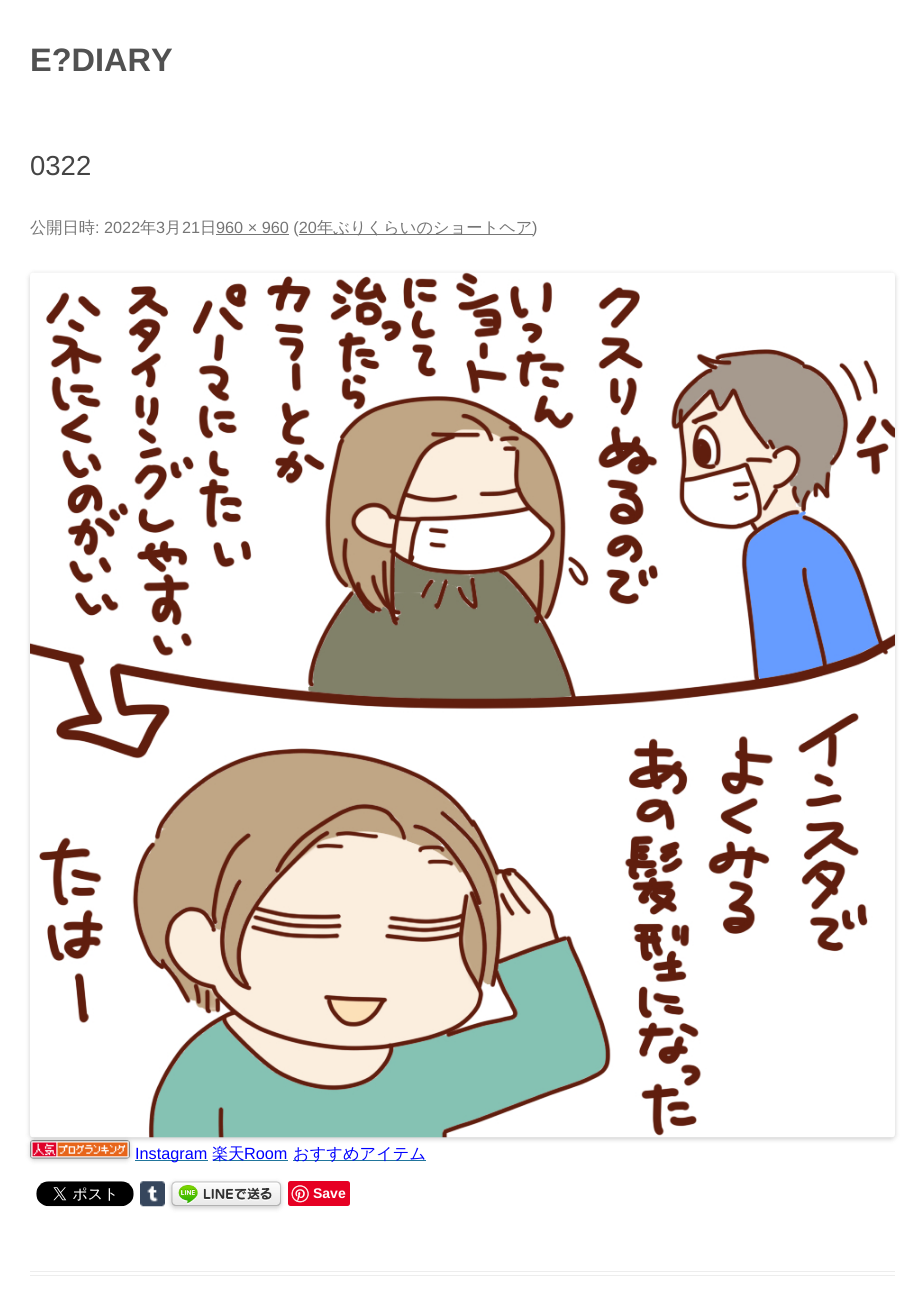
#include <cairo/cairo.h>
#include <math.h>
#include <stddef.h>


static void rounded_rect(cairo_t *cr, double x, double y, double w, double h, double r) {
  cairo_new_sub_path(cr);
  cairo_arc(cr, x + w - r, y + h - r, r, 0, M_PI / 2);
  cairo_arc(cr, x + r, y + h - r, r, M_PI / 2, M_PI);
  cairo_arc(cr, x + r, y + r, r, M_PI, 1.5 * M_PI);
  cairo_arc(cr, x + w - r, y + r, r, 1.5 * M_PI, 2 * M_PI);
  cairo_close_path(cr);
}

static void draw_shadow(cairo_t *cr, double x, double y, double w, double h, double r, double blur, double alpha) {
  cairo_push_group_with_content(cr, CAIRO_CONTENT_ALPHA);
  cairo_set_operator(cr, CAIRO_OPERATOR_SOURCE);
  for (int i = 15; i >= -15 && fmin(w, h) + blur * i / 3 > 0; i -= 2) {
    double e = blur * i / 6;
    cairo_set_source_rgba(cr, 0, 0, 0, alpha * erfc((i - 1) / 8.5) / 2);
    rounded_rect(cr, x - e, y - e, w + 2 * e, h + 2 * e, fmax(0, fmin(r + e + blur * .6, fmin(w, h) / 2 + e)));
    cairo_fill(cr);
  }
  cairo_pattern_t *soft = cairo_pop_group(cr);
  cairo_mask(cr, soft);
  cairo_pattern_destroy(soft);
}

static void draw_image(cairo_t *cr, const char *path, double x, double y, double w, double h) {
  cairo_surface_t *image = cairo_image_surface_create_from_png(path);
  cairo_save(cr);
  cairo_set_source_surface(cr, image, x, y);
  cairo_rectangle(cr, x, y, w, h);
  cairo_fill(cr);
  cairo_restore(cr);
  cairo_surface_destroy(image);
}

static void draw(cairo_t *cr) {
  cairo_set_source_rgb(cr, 1, 1, 1);
  cairo_paint(cr);
  cairo_set_source_rgb(cr, 237 / 255.0, 237 / 255.0, 237 / 255.0);
  cairo_rectangle(cr, 30, 1271, 865, 1);
  cairo_fill(cr);
  cairo_rectangle(cr, 30, 1275, 865, 1);
  cairo_fill(cr);
  cairo_set_source_rgb(cr, 117 / 255.0, 117 / 255.0, 117 / 255.0);
  cairo_rectangle(cr, 216, 234, 73, 1);
  cairo_fill(cr);
  cairo_rectangle(cr, 299, 234, 234, 1);
  cairo_fill(cr);
  cairo_set_source_rgb(cr, 0, 0, 0);
  draw_shadow(cr, 30, 274, 865, 865, 4, 2.5, 0.2);
  draw_image(cr, "images/1.png", 30, 272, 865, 866);
  draw_shadow(cr, 30, 1141, 100, 19, 4, 2.5, 0.2);
  draw_image(cr, "images/2.png", 30, 1140, 100, 19);
  cairo_set_source_rgb(cr, 33 / 255.0, 117 / 255.0, 155 / 255.0);
  cairo_rectangle(cr, 135, 1160, 73, 1);
  cairo_fill(cr);
  cairo_rectangle(cr, 213, 1160, 75, 1);
  cairo_fill(cr);
  cairo_rectangle(cr, 293, 1160, 133, 1);
  cairo_fill(cr);
  draw_image(cr, "images/3.png", 36, 1181, 98, 26);
  cairo_set_source_rgb(cr, 0, 0, 0);
  draw_shadow(cr, 171, 1183, 110, 25, 4, 2.5, 0.2);
  draw_image(cr, "images/4.png", 140, 1181, 25, 26);
  draw_image(cr, "images/5.png", 171, 1181, 111, 25);
  cairo_set_source_rgb(cr, 230 / 255.0, 0, 35 / 255.0);
  rounded_rect(cr, 288, 1181, 62, 25, 2.5);
  cairo_fill(cr);
  draw_image(cr, "images/6.png", 291, 1185, 18, 18);
  cairo_select_font_face(cr, "Liberation Sans", CAIRO_FONT_SLANT_NORMAL, CAIRO_FONT_WEIGHT_BOLD);
  cairo_set_font_size(cr, 32.5);
  cairo_set_source_rgb(cr, 81 / 255.0, 81 / 255.0, 81 / 255.0);
  cairo_move_to(cr, 30, 71);
  cairo_show_text(cr, "E?DIARY");
  cairo_select_font_face(cr, "Liberation Sans", CAIRO_FONT_SLANT_NORMAL, CAIRO_FONT_WEIGHT_NORMAL);
  cairo_set_font_size(cr, 27.5);
  cairo_set_source_rgb(cr, 68 / 255.0, 68 / 255.0, 68 / 255.0);
  cairo_move_to(cr, 30, 175);
  cairo_show_text(cr, "0322");
  cairo_select_font_face(cr, "WenQuanYi Zen Hei Medium", CAIRO_FONT_SLANT_NORMAL, CAIRO_FONT_WEIGHT_NORMAL);
  cairo_set_font_size(cr, 16.25);
  cairo_set_source_rgb(cr, 117 / 255.0, 117 / 255.0, 117 / 255.0);
  cairo_move_to(cr, 30, 233);
  cairo_show_text(cr, "公開日時");
  cairo_select_font_face(cr, "Liberation Sans", CAIRO_FONT_SLANT_NORMAL, CAIRO_FONT_WEIGHT_NORMAL);
  cairo_move_to(cr, 95, 233);
  cairo_show_text(cr, ": 2022");
  cairo_select_font_face(cr, "WenQuanYi Zen Hei Medium", CAIRO_FONT_SLANT_NORMAL, CAIRO_FONT_WEIGHT_NORMAL);
  cairo_move_to(cr, 140, 233);
  cairo_show_text(cr, "年");
  cairo_select_font_face(cr, "Liberation Sans", CAIRO_FONT_SLANT_NORMAL, CAIRO_FONT_WEIGHT_NORMAL);
  cairo_move_to(cr, 156, 233);
  cairo_show_text(cr, "3");
  cairo_select_font_face(cr, "WenQuanYi Zen Hei Medium", CAIRO_FONT_SLANT_NORMAL, CAIRO_FONT_WEIGHT_NORMAL);
  cairo_move_to(cr, 165, 233);
  cairo_show_text(cr, "月");
  cairo_select_font_face(cr, "Liberation Sans", CAIRO_FONT_SLANT_NORMAL, CAIRO_FONT_WEIGHT_NORMAL);
  cairo_move_to(cr, 182, 233);
  cairo_show_text(cr, "21");
  cairo_select_font_face(cr, "WenQuanYi Zen Hei Medium", CAIRO_FONT_SLANT_NORMAL, CAIRO_FONT_WEIGHT_NORMAL);
  cairo_move_to(cr, 200, 233);
  cairo_show_text(cr, "日");
  cairo_select_font_face(cr, "Liberation Sans", CAIRO_FONT_SLANT_NORMAL, CAIRO_FONT_WEIGHT_NORMAL);
  cairo_move_to(cr, 216, 233);
  cairo_show_text(cr, "960 × 960 (20");
  cairo_select_font_face(cr, "WenQuanYi Zen Hei Medium", CAIRO_FONT_SLANT_NORMAL, CAIRO_FONT_WEIGHT_NORMAL);
  cairo_move_to(cr, 317, 233);
  cairo_show_text(cr, "年ぶりくらいのショートヘア");
  cairo_select_font_face(cr, "Liberation Sans", CAIRO_FONT_SLANT_NORMAL, CAIRO_FONT_WEIGHT_NORMAL);
  cairo_move_to(cr, 532, 233);
  cairo_show_text(cr, ")");
  cairo_set_source_rgb(cr, 0, 0, 1);
  cairo_move_to(cr, 135, 1159);
  cairo_show_text(cr, "Instagram");
  cairo_select_font_face(cr, "WenQuanYi Zen Hei Medium", CAIRO_FONT_SLANT_NORMAL, CAIRO_FONT_WEIGHT_NORMAL);
  cairo_move_to(cr, 212, 1159);
  cairo_show_text(cr, "楽天");
  cairo_select_font_face(cr, "Liberation Sans", CAIRO_FONT_SLANT_NORMAL, CAIRO_FONT_WEIGHT_NORMAL);
  cairo_move_to(cr, 244, 1159);
  cairo_show_text(cr, "Room");
  cairo_select_font_face(cr, "WenQuanYi Zen Hei Medium", CAIRO_FONT_SLANT_NORMAL, CAIRO_FONT_WEIGHT_NORMAL);
  cairo_move_to(cr, 293, 1159);
  cairo_show_text(cr, "おすすめアイテム");
  cairo_select_font_face(cr, "Liberation Sans", CAIRO_FONT_SLANT_NORMAL, CAIRO_FONT_WEIGHT_BOLD);
  cairo_set_font_size(cr, 14);
  cairo_set_source_rgb(cr, 1, 1, 1);
  cairo_move_to(cr, 313, 1198);
  cairo_show_text(cr, "Save");
}

int main(void) {
  cairo_surface_t *surface = cairo_image_surface_create(CAIRO_FORMAT_RGB24, 924, 1315);
  cairo_t *cr = cairo_create(surface);
  cairo_font_options_t *options = cairo_font_options_create();
  cairo_font_options_set_hint_metrics(options, CAIRO_HINT_METRICS_OFF);
  cairo_font_options_set_hint_style(options, CAIRO_HINT_STYLE_NONE);
  cairo_set_font_options(cr, options);
  cairo_set_miter_limit(cr, 4);
  draw(cr);
  cairo_surface_write_to_png(surface, "out.png");
  cairo_font_options_destroy(options);
  cairo_destroy(cr);
  cairo_surface_destroy(surface);
  return 0;
}
